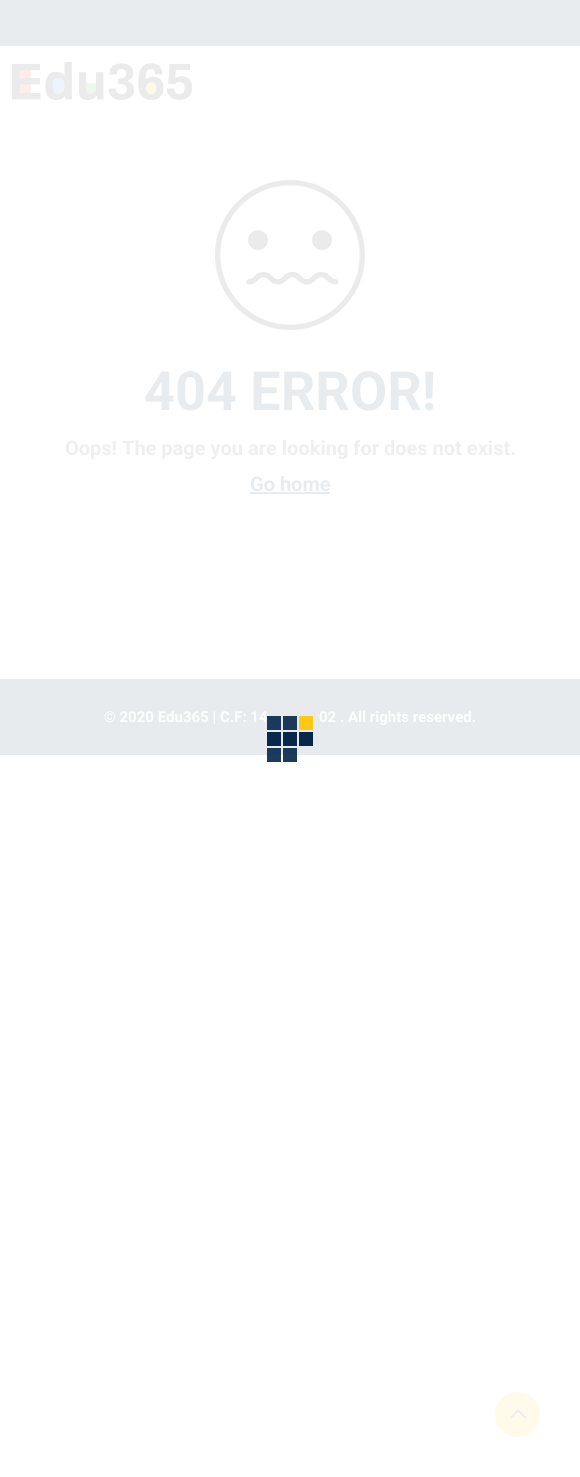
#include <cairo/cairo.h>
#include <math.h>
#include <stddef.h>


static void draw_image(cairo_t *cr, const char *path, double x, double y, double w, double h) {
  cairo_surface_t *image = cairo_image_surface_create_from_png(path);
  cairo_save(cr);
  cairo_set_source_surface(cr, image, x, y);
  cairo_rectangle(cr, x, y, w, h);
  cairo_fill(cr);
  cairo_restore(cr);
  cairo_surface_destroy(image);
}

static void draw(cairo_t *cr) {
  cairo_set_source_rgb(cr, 1, 1, 1);
  cairo_paint(cr);
  cairo_set_source_rgb(cr, 29 / 255.0, 60 / 255.0, 93 / 255.0);
  cairo_rectangle(cr, 283, 755, 14, 7);
  cairo_fill(cr);
  cairo_rectangle(cr, 267, 755, 14, 7);
  cairo_fill(cr);
  cairo_set_source_rgb(cr, 233 / 255.0, 236 / 255.0, 239 / 255.0);
  cairo_rectangle(cr, 0, 0, 580, 46);
  cairo_fill(cr);
  draw_image(cr, "images/1.png", 12, 62, 180, 38);
  draw_image(cr, "images/2.png", 215, 180, 150, 150);
  cairo_rectangle(cr, 250, 492, 80, 2);
  cairo_fill(cr);
  cairo_set_source_rgb(cr, 232 / 255.0, 235 / 255.0, 237 / 255.0);
  cairo_rectangle(cr, 0, 679, 580, 76);
  cairo_fill(cr);
  cairo_set_source_rgb(cr, 27 / 255.0, 58 / 255.0, 91 / 255.0);
  cairo_rectangle(cr, 283, 748, 14, 7);
  cairo_fill(cr);
  cairo_rectangle(cr, 267, 748, 14, 7);
  cairo_fill(cr);
  cairo_set_source_rgba(cr, 7 / 255.0, 41 / 255.0, 77 / 255.0, 0.91);
  cairo_rectangle(cr, 283, 716, 14, 14);
  cairo_fill(cr);
  cairo_set_source_rgba(cr, 1, 198 / 255.0, 0, 0.91);
  cairo_rectangle(cr, 299, 716, 14, 14);
  cairo_fill(cr);
  cairo_set_source_rgb(cr, 7 / 255.0, 40 / 255.0, 75 / 255.0);
  cairo_rectangle(cr, 267, 732, 14, 14);
  cairo_fill(cr);
  cairo_rectangle(cr, 283, 732, 14, 14);
  cairo_fill(cr);
  cairo_rectangle(cr, 299, 732, 14, 14);
  cairo_fill(cr);
  cairo_set_source_rgb(cr, 1, 250 / 255.0, 233 / 255.0);
  cairo_arc(cr, 517.5, 1414.5, 22.5, 0, 2 * M_PI);
  cairo_fill(cr);
  draw_image(cr, "images/3.png", 510, 1409, 16, 10);
  cairo_select_font_face(cr, "Roboto", CAIRO_FONT_SLANT_NORMAL, CAIRO_FONT_WEIGHT_BOLD);
  cairo_set_font_size(cr, 54);
  cairo_set_source_rgb(cr, 233 / 255.0, 236 / 255.0, 239 / 255.0);
  cairo_move_to(cr, 144, 410);
  cairo_show_text(cr, "404 ERROR!");
  cairo_set_font_size(cr, 20);
  cairo_set_source_rgb(cr, 239 / 255.0, 239 / 255.0, 239 / 255.0);
  cairo_move_to(cr, 65, 455);
  cairo_show_text(cr, "Oops! The page you are looking for does not exist.");
  cairo_set_source_rgb(cr, 233 / 255.0, 236 / 255.0, 239 / 255.0);
  cairo_move_to(cr, 250, 491);
  cairo_show_text(cr, "Go home");
  cairo_set_font_size(cr, 15);
  cairo_set_source_rgb(cr, 253 / 255.0, 254 / 255.0, 254 / 255.0);
  cairo_move_to(cr, 104, 722);
  cairo_show_text(cr, "© 2020 Edu365 | C.F: 14");
  cairo_move_to(cr, 319, 722);
  cairo_show_text(cr, "02 . All rights reserved.");
  cairo_set_source_rgba(cr, 7 / 255.0, 41 / 255.0, 77 / 255.0, 0.91);
  cairo_rectangle(cr, 267, 716, 14, 14);
  cairo_fill(cr);
}

int main(void) {
  cairo_surface_t *surface = cairo_image_surface_create(CAIRO_FORMAT_RGB24, 580, 1477);
  cairo_t *cr = cairo_create(surface);
  cairo_font_options_t *options = cairo_font_options_create();
  cairo_font_options_set_hint_metrics(options, CAIRO_HINT_METRICS_OFF);
  cairo_font_options_set_hint_style(options, CAIRO_HINT_STYLE_NONE);
  cairo_set_font_options(cr, options);
  cairo_set_miter_limit(cr, 4);
  draw(cr);
  cairo_surface_write_to_png(surface, "out.png");
  cairo_font_options_destroy(options);
  cairo_destroy(cr);
  cairo_surface_destroy(surface);
  return 0;
}
